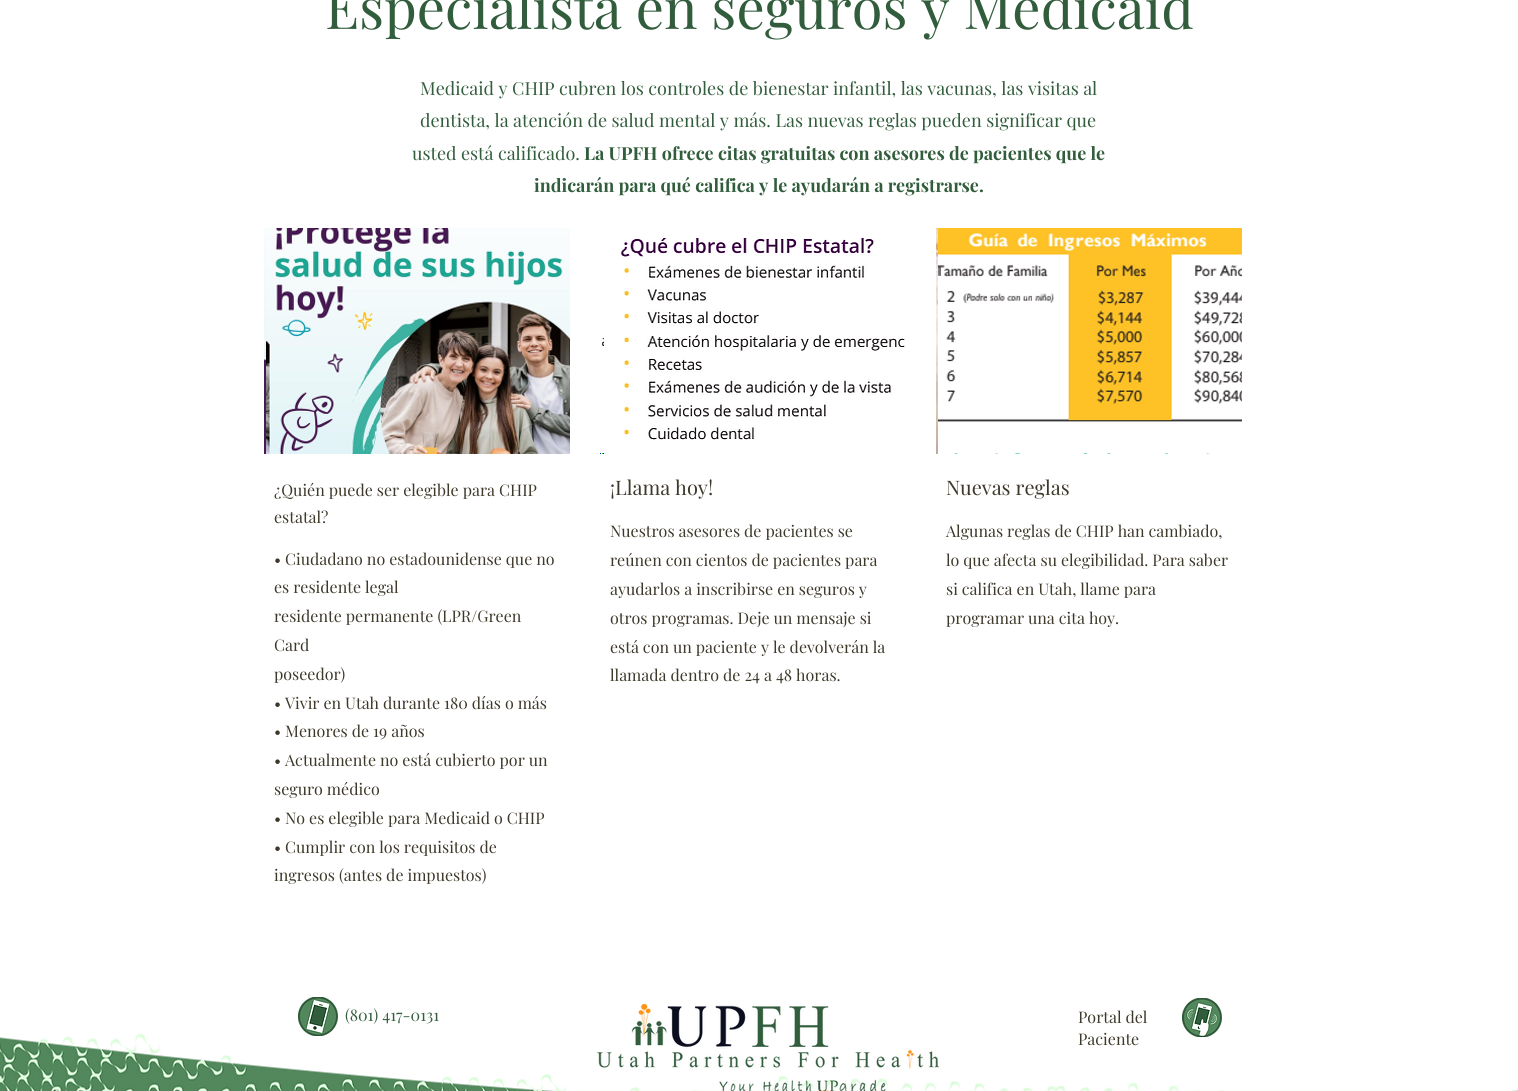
#include <cairo/cairo.h>
#include <math.h>
#include <stddef.h>


static void draw_image(cairo_t *cr, const char *path, double x, double y, double w, double h) {
  cairo_surface_t *image = cairo_image_surface_create_from_png(path);
  cairo_save(cr);
  cairo_set_source_surface(cr, image, x, y);
  cairo_rectangle(cr, x, y, w, h);
  cairo_fill(cr);
  cairo_restore(cr);
  cairo_surface_destroy(image);
}

static void draw(cairo_t *cr) {
  cairo_set_source_rgb(cr, 1, 1, 1);
  cairo_paint(cr);
  draw_image(cr, "images/1.png", 264, 228, 2, 226);
  draw_image(cr, "images/2.png", 266, 228, 304, 226);
  draw_image(cr, "images/3.png", 600, 244, 2, 210);
  draw_image(cr, "images/4.png", 602, 238, 303, 216);
  draw_image(cr, "images/5.png", 936, 228, 2, 226);
  draw_image(cr, "images/6.png", 938, 228, 304, 226);
  draw_image(cr, "images/10.png", 0, 1033, 1518, 58);
  draw_image(cr, "images/7.png", 298, 997, 40, 39);
  draw_image(cr, "images/8.png", 597, 1004, 342, 87);
  draw_image(cr, "images/9.png", 1182, 998, 40, 39);
  cairo_select_font_face(cr, "Playfair Display", CAIRO_FONT_SLANT_NORMAL, CAIRO_FONT_WEIGHT_NORMAL);
  cairo_set_font_size(cr, 56);
  cairo_set_source_rgb(cr, 50 / 255.0, 93 / 255.0, 60 / 255.0);
  cairo_move_to(cr, 325, 29);
  cairo_show_text(cr, "Especialista en seguros y Medicaid");
  cairo_set_font_size(cr, 18);
  cairo_move_to(cr, 420, 95);
  cairo_show_text(cr, "Medicaid y CHIP cubren los controles de bienestar infantil, las vacunas, las visitas al");
  cairo_move_to(cr, 420, 127);
  cairo_show_text(cr, "dentista, la atención de salud mental y más. Las nuevas reglas pueden significar que");
  cairo_move_to(cr, 412, 160);
  cairo_show_text(cr, "usted está calificado.");
  cairo_select_font_face(cr, "Playfair Display", CAIRO_FONT_SLANT_NORMAL, CAIRO_FONT_WEIGHT_BOLD);
  cairo_move_to(cr, 584, 160);
  cairo_show_text(cr, "La UPFH ofrece citas gratuitas con asesores de pacientes que le");
  cairo_move_to(cr, 534, 192);
  cairo_show_text(cr, "indicarán para qué califica y le ayudarán a registrarse.");
  cairo_select_font_face(cr, "Playfair Display", CAIRO_FONT_SLANT_NORMAL, CAIRO_FONT_WEIGHT_NORMAL);
  cairo_set_font_size(cr, 16);
  cairo_set_source_rgb(cr, 61 / 255.0, 56 / 255.0, 41 / 255.0);
  cairo_move_to(cr, 274, 496);
  cairo_show_text(cr, "¿Quién puede ser elegible para CHIP");
  cairo_move_to(cr, 274, 523);
  cairo_show_text(cr, "estatal?");
  cairo_move_to(cr, 274, 565);
  cairo_show_text(cr, "• Ciudadano no estadounidense que no");
  cairo_move_to(cr, 274, 593);
  cairo_show_text(cr, "es residente legal");
  cairo_move_to(cr, 274, 622);
  cairo_show_text(cr, "residente permanente (LPR/Green");
  cairo_move_to(cr, 274, 651);
  cairo_show_text(cr, "Card");
  cairo_move_to(cr, 274, 680);
  cairo_show_text(cr, "poseedor)");
  cairo_move_to(cr, 274, 709);
  cairo_show_text(cr, "• Vivir en Utah durante 180 días o más");
  cairo_move_to(cr, 274, 737);
  cairo_show_text(cr, "• Menores de 19 años");
  cairo_move_to(cr, 274, 766);
  cairo_show_text(cr, "• Actualmente no está cubierto por un");
  cairo_move_to(cr, 274, 795);
  cairo_show_text(cr, "seguro médico");
  cairo_move_to(cr, 274, 824);
  cairo_show_text(cr, "• No es elegible para Medicaid o CHIP");
  cairo_move_to(cr, 274, 853);
  cairo_show_text(cr, "• Cumplir con los requisitos de");
  cairo_move_to(cr, 274, 881);
  cairo_show_text(cr, "ingresos (antes de impuestos)");
  cairo_set_font_size(cr, 20);
  cairo_move_to(cr, 610, 495);
  cairo_show_text(cr, "¡Llama hoy!");
  cairo_set_font_size(cr, 16);
  cairo_move_to(cr, 610, 537);
  cairo_show_text(cr, "Nuestros asesores de pacientes se");
  cairo_move_to(cr, 610, 566);
  cairo_show_text(cr, "reúnen con cientos de pacientes para");
  cairo_move_to(cr, 610, 595);
  cairo_show_text(cr, "ayudarlos a inscribirse en seguros y");
  cairo_move_to(cr, 610, 624);
  cairo_show_text(cr, "otros programas. Deje un mensaje si");
  cairo_move_to(cr, 610, 653);
  cairo_show_text(cr, "está con un paciente y le devolverán la");
  cairo_move_to(cr, 610, 681);
  cairo_show_text(cr, "llamada dentro de 24 a 48 horas.");
  cairo_set_font_size(cr, 20);
  cairo_move_to(cr, 946, 495);
  cairo_show_text(cr, "Nuevas reglas");
  cairo_set_font_size(cr, 16);
  cairo_move_to(cr, 946, 537);
  cairo_show_text(cr, "Algunas reglas de CHIP han cambiado,");
  cairo_move_to(cr, 946, 566);
  cairo_show_text(cr, "lo que afecta su elegibilidad. Para saber");
  cairo_move_to(cr, 946, 595);
  cairo_show_text(cr, "si califica en Utah, llame para");
  cairo_move_to(cr, 946, 624);
  cairo_show_text(cr, "programar una cita hoy.");
  cairo_set_source_rgb(cr, 50 / 255.0, 93 / 255.0, 60 / 255.0);
  cairo_move_to(cr, 345, 1021);
  cairo_show_text(cr, "(801) 417-0131");
  cairo_set_source_rgb(cr, 61 / 255.0, 56 / 255.0, 41 / 255.0);
  cairo_move_to(cr, 1078, 1023);
  cairo_show_text(cr, "Portal del");
  cairo_move_to(cr, 1078, 1045);
  cairo_show_text(cr, "Paciente");
}

int main(void) {
  cairo_surface_t *surface = cairo_image_surface_create(CAIRO_FORMAT_RGB24, 1518, 1091);
  cairo_t *cr = cairo_create(surface);
  cairo_font_options_t *options = cairo_font_options_create();
  cairo_font_options_set_hint_metrics(options, CAIRO_HINT_METRICS_OFF);
  cairo_font_options_set_hint_style(options, CAIRO_HINT_STYLE_NONE);
  cairo_set_font_options(cr, options);
  cairo_set_miter_limit(cr, 4);
  draw(cr);
  cairo_surface_write_to_png(surface, "out.png");
  cairo_font_options_destroy(options);
  cairo_destroy(cr);
  cairo_surface_destroy(surface);
  return 0;
}
